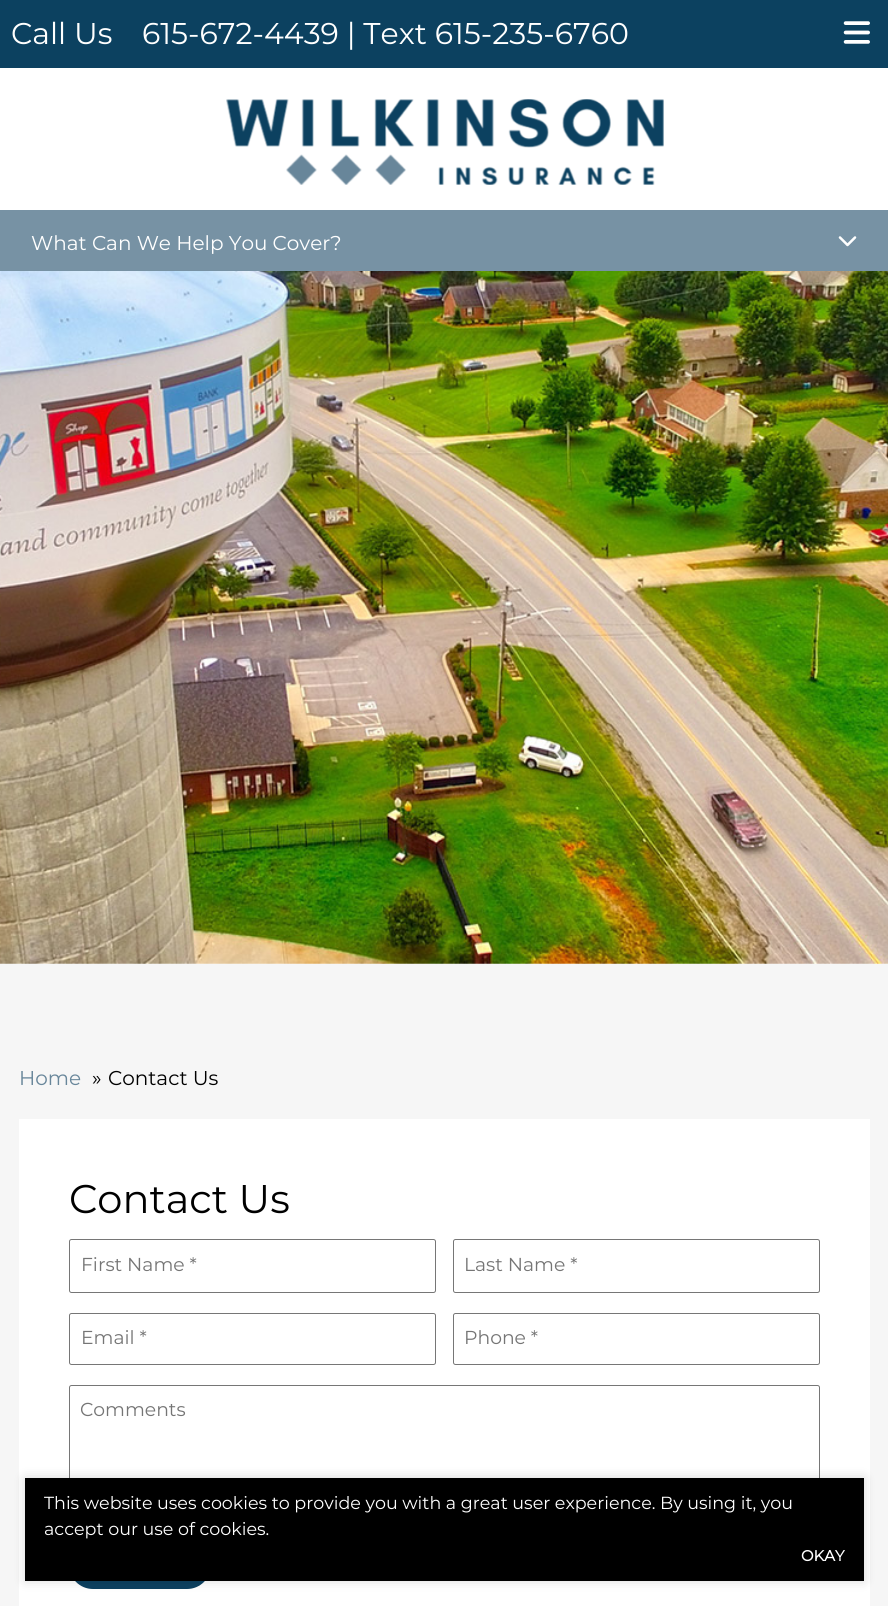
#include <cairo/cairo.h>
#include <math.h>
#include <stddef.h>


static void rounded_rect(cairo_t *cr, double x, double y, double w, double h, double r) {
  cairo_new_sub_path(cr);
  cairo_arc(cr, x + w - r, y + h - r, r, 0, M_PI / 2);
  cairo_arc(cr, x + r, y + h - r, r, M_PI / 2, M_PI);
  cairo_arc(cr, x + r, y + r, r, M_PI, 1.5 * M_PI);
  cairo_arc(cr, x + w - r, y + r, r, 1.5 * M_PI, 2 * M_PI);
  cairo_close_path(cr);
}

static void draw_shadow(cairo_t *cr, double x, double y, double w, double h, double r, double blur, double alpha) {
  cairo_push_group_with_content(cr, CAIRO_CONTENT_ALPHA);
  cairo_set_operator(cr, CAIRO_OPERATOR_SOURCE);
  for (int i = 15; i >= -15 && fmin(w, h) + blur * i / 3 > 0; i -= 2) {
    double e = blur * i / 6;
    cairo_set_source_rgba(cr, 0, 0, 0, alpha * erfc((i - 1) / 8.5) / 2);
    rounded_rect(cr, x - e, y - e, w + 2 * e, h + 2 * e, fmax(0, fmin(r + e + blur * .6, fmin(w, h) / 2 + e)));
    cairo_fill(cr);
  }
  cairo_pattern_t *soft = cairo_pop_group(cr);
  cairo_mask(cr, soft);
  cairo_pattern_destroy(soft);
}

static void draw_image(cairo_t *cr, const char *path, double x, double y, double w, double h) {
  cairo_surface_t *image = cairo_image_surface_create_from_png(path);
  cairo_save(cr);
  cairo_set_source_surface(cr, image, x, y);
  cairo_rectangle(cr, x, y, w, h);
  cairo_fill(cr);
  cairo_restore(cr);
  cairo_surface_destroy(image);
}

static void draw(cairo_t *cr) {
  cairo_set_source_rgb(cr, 1, 1, 1);
  cairo_paint(cr);
  cairo_set_source_rgb(cr, 12 / 255.0, 65 / 255.0, 96 / 255.0);
  cairo_rectangle(cr, 0, 0, 888, 68);
  cairo_fill(cr);
  draw_image(cr, "images/1.png", 843, 21, 27, 23);
  draw_image(cr, "images/2.png", 226, 99, 438, 86);
  cairo_set_source_rgb(cr, 119 / 255.0, 146 / 255.0, 164 / 255.0);
  cairo_rectangle(cr, 0, 210, 888, 61);
  cairo_fill(cr);
  draw_image(cr, "images/3.png", 838, 236, 19, 11);
  draw_image(cr, "images/4.png", 0, 271, 888, 693);
  cairo_set_source_rgb(cr, 246 / 255.0, 246 / 255.0, 246 / 255.0);
  cairo_rectangle(cr, 0, 964, 888, 642);
  cairo_fill(cr);
  cairo_set_source_rgb(cr, 1, 1, 1);
  cairo_rectangle(cr, 19, 1119, 851, 487);
  cairo_fill(cr);
  rounded_rect(cr, 69.5, 1239.5, 366, 53, 2);
  cairo_set_source_rgb(cr, 118 / 255.0, 118 / 255.0, 118 / 255.0);
  cairo_set_line_width(cr, 1);
  cairo_stroke(cr);
  rounded_rect(cr, 453.5, 1239.5, 366, 53, 2);
  cairo_stroke(cr);
  rounded_rect(cr, 69.5, 1313.5, 366, 51, 2);
  cairo_stroke(cr);
  rounded_rect(cr, 453.5, 1313.5, 366, 51, 2);
  cairo_stroke(cr);
  rounded_rect(cr, 69.5, 1385.5, 750, 119, 2);
  cairo_stroke(cr);
  cairo_set_source_rgb(cr, 12 / 255.0, 65 / 255.0, 96 / 255.0);
  rounded_rect(cr, 69, 1541, 142, 48, 24);
  cairo_fill(cr);
  cairo_set_source_rgb(cr, 0, 0, 0);
  draw_shadow(cr, 25, 1478, 839, 103, 0, 6, 0.15);
  cairo_set_source_rgb(cr, 0, 0, 0);
  cairo_rectangle(cr, 25, 1478, 839, 103);
  cairo_fill(cr);
  cairo_select_font_face(cr, "Montserrat Thin", CAIRO_FONT_SLANT_NORMAL, CAIRO_FONT_WEIGHT_NORMAL);
  cairo_set_font_size(cr, 30);
  cairo_set_source_rgb(cr, 1, 1, 1);
  cairo_move_to(cr, 11, 44);
  cairo_show_text(cr, "Call Us");
  cairo_move_to(cr, 142, 44);
  cairo_show_text(cr, "615-672-4439 | Text 615-235-6760");
  cairo_set_font_size(cr, 20);
  cairo_move_to(cr, 31, 250);
  cairo_show_text(cr, "What Can We Help You Cover?");
  cairo_set_source_rgb(cr, 104 / 255.0, 134 / 255.0, 154 / 255.0);
  cairo_move_to(cr, 19, 1085);
  cairo_show_text(cr, "Home");
  cairo_set_source_rgb(cr, 0, 0, 0);
  cairo_move_to(cr, 92, 1085);
  cairo_show_text(cr, "»");
  cairo_move_to(cr, 108, 1085);
  cairo_show_text(cr, "Contact Us");
  cairo_set_font_size(cr, 40);
  cairo_move_to(cr, 69, 1213);
  cairo_show_text(cr, "Contact Us");
  cairo_set_font_size(cr, 18.75);
  cairo_set_source_rgb(cr, 117 / 255.0, 117 / 255.0, 117 / 255.0);
  cairo_move_to(cr, 81, 1271);
  cairo_show_text(cr, "First Name *");
  cairo_move_to(cr, 464, 1271);
  cairo_show_text(cr, "Last Name *");
  cairo_move_to(cr, 81, 1344);
  cairo_show_text(cr, "Email *");
  cairo_move_to(cr, 464, 1344);
  cairo_show_text(cr, "Phone *");
  cairo_move_to(cr, 80, 1416);
  cairo_show_text(cr, "Comments");
  cairo_set_font_size(cr, 17.5);
  cairo_set_source_rgb(cr, 1, 1, 1);
  cairo_move_to(cr, 44, 1509);
  cairo_show_text(cr, "This website uses cookies to provide you with a great user experience. By using it, you");
  cairo_move_to(cr, 44, 1535);
  cairo_show_text(cr, "accept our use of cookies.");
  cairo_select_font_face(cr, "Montserrat", CAIRO_FONT_SLANT_NORMAL, CAIRO_FONT_WEIGHT_BOLD);
  cairo_set_font_size(cr, 15);
  cairo_move_to(cr, 801, 1561);
  cairo_show_text(cr, "OKAY");
}

int main(void) {
  cairo_surface_t *surface = cairo_image_surface_create(CAIRO_FORMAT_RGB24, 888, 1606);
  cairo_t *cr = cairo_create(surface);
  cairo_font_options_t *options = cairo_font_options_create();
  cairo_font_options_set_hint_metrics(options, CAIRO_HINT_METRICS_OFF);
  cairo_font_options_set_hint_style(options, CAIRO_HINT_STYLE_NONE);
  cairo_set_font_options(cr, options);
  cairo_set_miter_limit(cr, 4);
  draw(cr);
  cairo_surface_write_to_png(surface, "out.png");
  cairo_font_options_destroy(options);
  cairo_destroy(cr);
  cairo_surface_destroy(surface);
  return 0;
}
